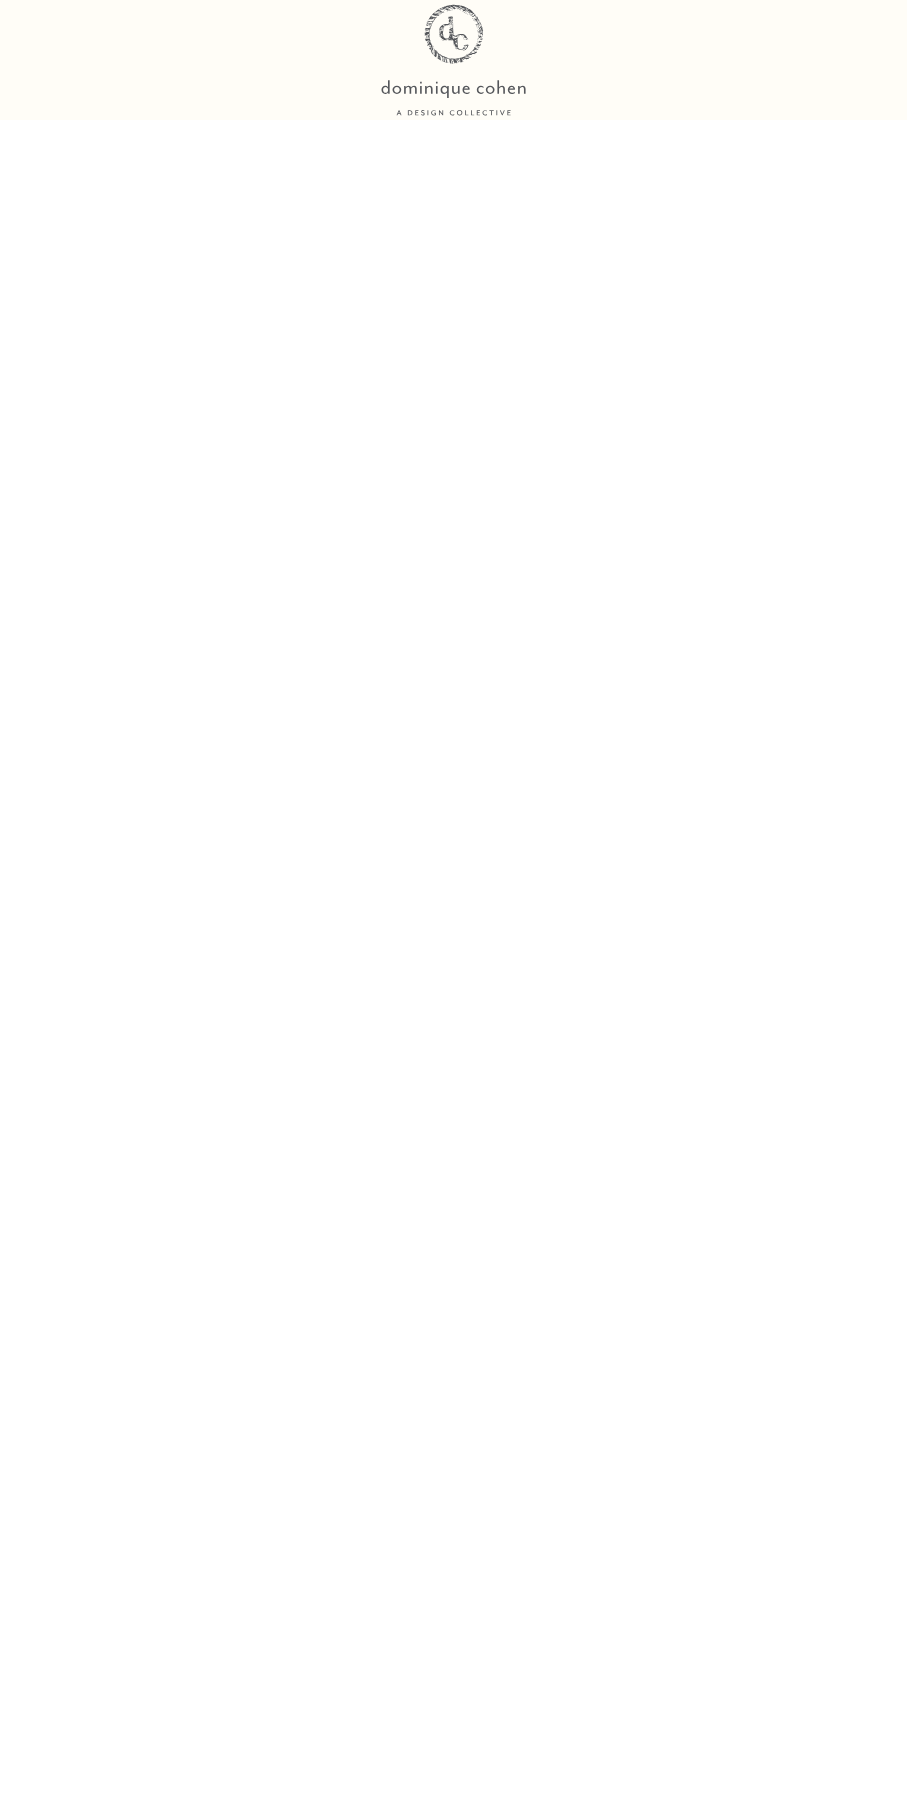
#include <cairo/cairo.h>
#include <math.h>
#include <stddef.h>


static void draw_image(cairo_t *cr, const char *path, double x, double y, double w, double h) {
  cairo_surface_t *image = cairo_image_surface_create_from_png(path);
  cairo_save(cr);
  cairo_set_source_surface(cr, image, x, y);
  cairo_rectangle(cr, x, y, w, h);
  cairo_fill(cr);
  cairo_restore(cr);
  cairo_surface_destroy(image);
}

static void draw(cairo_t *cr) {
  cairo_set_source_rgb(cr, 1, 1, 1);
  cairo_paint(cr);
  cairo_set_source_rgb(cr, 1, 253 / 255.0, 247 / 255.0);
  cairo_rectangle(cr, 0, 0, 907, 120);
  cairo_fill(cr);
  draw_image(cr, "images/1.png", 381, 4, 145, 112);
}

int main(void) {
  cairo_surface_t *surface = cairo_image_surface_create(CAIRO_FORMAT_RGB24, 907, 1798);
  cairo_t *cr = cairo_create(surface);
  cairo_font_options_t *options = cairo_font_options_create();
  cairo_font_options_set_hint_metrics(options, CAIRO_HINT_METRICS_OFF);
  cairo_font_options_set_hint_style(options, CAIRO_HINT_STYLE_NONE);
  cairo_set_font_options(cr, options);
  cairo_set_miter_limit(cr, 4);
  draw(cr);
  cairo_surface_write_to_png(surface, "out.png");
  cairo_font_options_destroy(options);
  cairo_destroy(cr);
  cairo_surface_destroy(surface);
  return 0;
}
